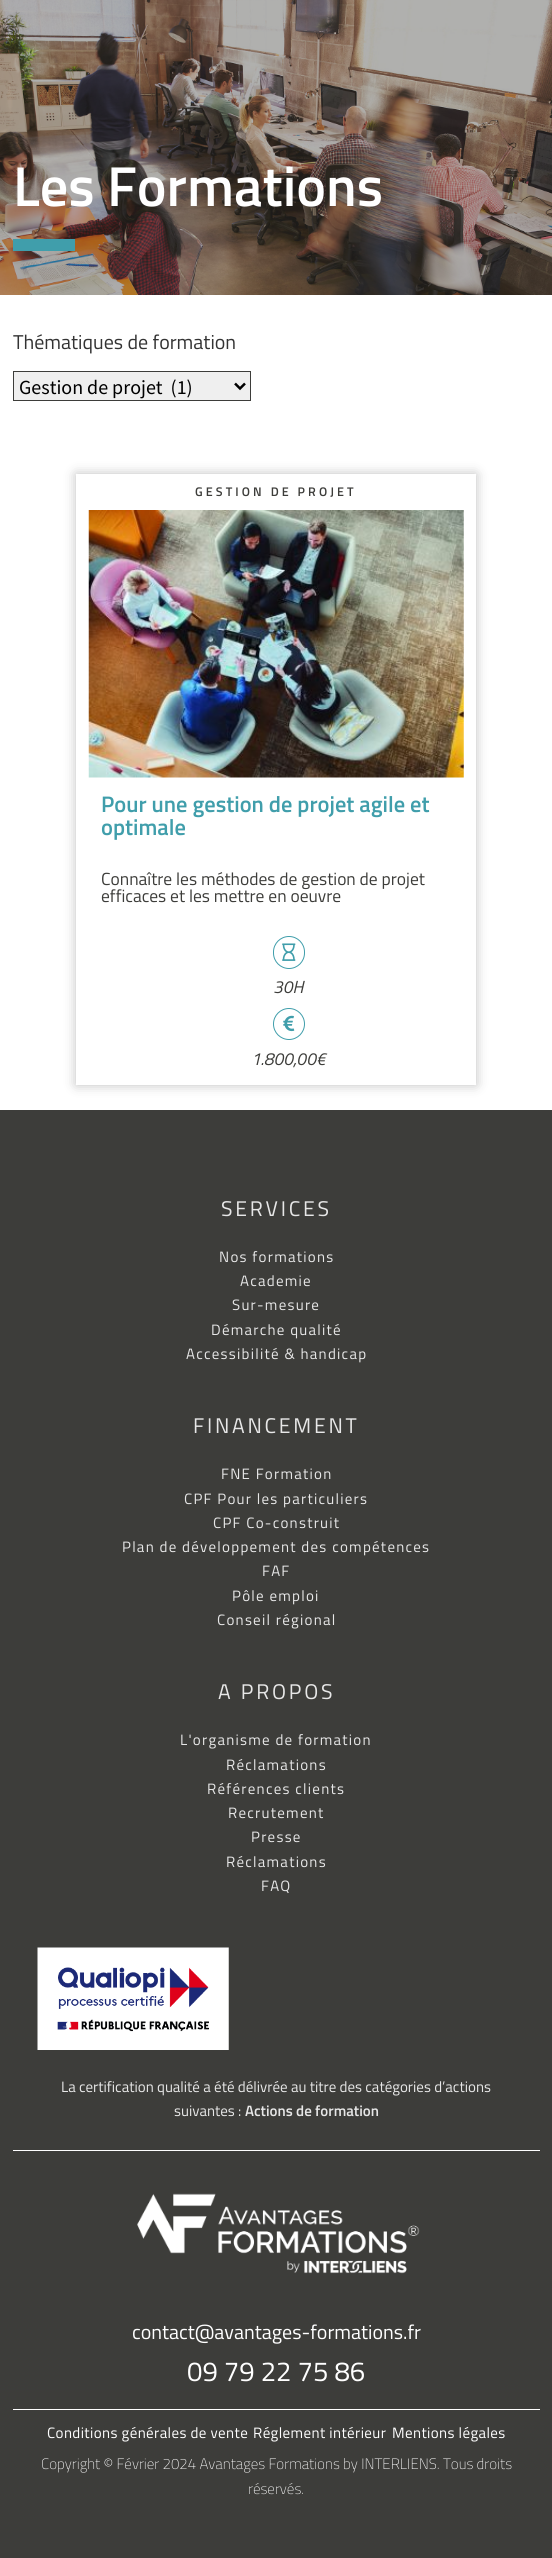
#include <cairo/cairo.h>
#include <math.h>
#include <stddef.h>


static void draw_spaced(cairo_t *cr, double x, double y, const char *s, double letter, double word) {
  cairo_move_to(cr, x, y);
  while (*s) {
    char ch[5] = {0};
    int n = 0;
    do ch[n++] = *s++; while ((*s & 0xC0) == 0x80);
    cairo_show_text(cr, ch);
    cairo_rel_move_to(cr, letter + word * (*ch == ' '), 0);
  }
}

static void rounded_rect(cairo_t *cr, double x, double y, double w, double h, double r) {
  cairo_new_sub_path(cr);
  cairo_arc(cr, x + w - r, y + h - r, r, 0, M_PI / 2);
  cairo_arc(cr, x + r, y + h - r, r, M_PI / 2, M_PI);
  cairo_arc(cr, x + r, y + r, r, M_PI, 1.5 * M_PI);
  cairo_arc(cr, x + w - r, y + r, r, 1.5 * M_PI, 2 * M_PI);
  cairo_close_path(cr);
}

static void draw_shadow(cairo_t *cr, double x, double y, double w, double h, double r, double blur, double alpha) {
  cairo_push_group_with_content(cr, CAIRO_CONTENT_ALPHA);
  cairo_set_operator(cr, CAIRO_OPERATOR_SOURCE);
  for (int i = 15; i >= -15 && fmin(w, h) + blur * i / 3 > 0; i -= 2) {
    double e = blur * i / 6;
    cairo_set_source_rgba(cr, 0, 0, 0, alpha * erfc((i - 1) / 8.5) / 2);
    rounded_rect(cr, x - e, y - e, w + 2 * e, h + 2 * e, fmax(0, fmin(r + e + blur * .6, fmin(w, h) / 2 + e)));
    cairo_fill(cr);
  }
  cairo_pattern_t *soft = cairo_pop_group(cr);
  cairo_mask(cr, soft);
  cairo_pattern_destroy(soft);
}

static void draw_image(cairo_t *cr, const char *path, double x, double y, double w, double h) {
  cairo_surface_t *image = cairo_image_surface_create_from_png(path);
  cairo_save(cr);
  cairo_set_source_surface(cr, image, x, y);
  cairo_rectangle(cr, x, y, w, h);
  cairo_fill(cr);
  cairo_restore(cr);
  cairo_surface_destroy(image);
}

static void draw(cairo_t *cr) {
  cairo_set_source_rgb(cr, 1, 1, 1);
  cairo_paint(cr);
  draw_image(cr, "images/1.png", 0, 0, 552, 295);
  cairo_set_source_rgb(cr, 64 / 255.0, 158 / 255.0, 171 / 255.0);
  cairo_rectangle(cr, 13, 239, 62, 12);
  cairo_fill(cr);
  cairo_set_source_rgb(cr, 239 / 255.0, 239 / 255.0, 239 / 255.0);
  cairo_rectangle(cr, 13.5, 371.5, 237, 29);
  cairo_fill_preserve(cr);
  cairo_set_source_rgb(cr, 61 / 255.0, 61 / 255.0, 58 / 255.0);
  cairo_set_line_width(cr, 1);
  cairo_stroke(cr);
  cairo_new_path(cr);
  cairo_move_to(cr, 235, 383.5);
  cairo_line_to(cr, 240, 388.5);
  cairo_line_to(cr, 245, 383.5);
  cairo_set_source_rgb(cr, 0, 0, 0);
  cairo_set_line_width(cr, 2.5);
  cairo_stroke(cr);
  cairo_save(cr);
  cairo_set_fill_rule(cr, CAIRO_FILL_RULE_EVEN_ODD);
  cairo_new_path(cr);
  cairo_move_to(cr, 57, 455);
  cairo_line_to(cr, 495, 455);
  cairo_line_to(cr, 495, 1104);
  cairo_line_to(cr, 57, 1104);
  cairo_close_path(cr);
  cairo_move_to(cr, 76, 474);
  cairo_line_to(cr, 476, 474);
  cairo_line_to(cr, 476, 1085);
  cairo_line_to(cr, 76, 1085);
  cairo_close_path(cr);
  cairo_clip(cr);
  cairo_set_source_rgb(cr, 0, 0, 0);
  draw_shadow(cr, 76, 474, 400, 611, 0, 6, 0.25);
  cairo_restore(cr);
  draw_image(cr, "images/2.png", 88, 510, 376, 268);
  rounded_rect(cr, 273.5, 936.5, 31, 32, 15.5);
  cairo_set_source_rgb(cr, 64 / 255.0, 158 / 255.0, 171 / 255.0);
  cairo_set_line_width(cr, 1);
  cairo_stroke(cr);
  draw_image(cr, "images/3.png", 282, 943, 14, 18);
  cairo_arc(cr, 289, 1024, 15.5, 0, 2 * M_PI);
  cairo_stroke(cr);
  draw_image(cr, "images/4.png", 283, 1015, 12, 17);
  cairo_set_source_rgb(cr, 61 / 255.0, 61 / 255.0, 58 / 255.0);
  cairo_rectangle(cr, 0, 1110, 552, 1448);
  cairo_fill(cr);
  draw_image(cr, "images/5.png", 37, 1947, 192, 103);
  cairo_set_source_rgb(cr, 1, 1, 1);
  cairo_rectangle(cr, 13, 2150, 527, 1);
  cairo_fill(cr);
  draw_image(cr, "images/6.png", 137, 2193, 283, 81);
  cairo_rectangle(cr, 13, 2409, 527, 1);
  cairo_fill(cr);
  cairo_select_font_face(cr, "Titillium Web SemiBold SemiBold", CAIRO_FONT_SLANT_NORMAL, CAIRO_FONT_WEIGHT_NORMAL);
  cairo_set_font_size(cr, 56.25);
  cairo_move_to(cr, 13, 206);
  cairo_show_text(cr, "Les Formations");
  cairo_select_font_face(cr, "Titillium Web", CAIRO_FONT_SLANT_NORMAL, CAIRO_FONT_WEIGHT_NORMAL);
  cairo_set_font_size(cr, 20);
  cairo_set_source_rgb(cr, 51 / 255.0, 51 / 255.0, 51 / 255.0);
  cairo_move_to(cr, 13, 349);
  cairo_show_text(cr, "Thématiques de formation");
  cairo_select_font_face(cr, "Source Sans Pro", CAIRO_FONT_SLANT_NORMAL, CAIRO_FONT_WEIGHT_NORMAL);
  cairo_set_source_rgb(cr, 0, 0, 0);
  cairo_move_to(cr, 19, 394);
  cairo_show_text(cr, "Gestion de projet  (1)");
  cairo_select_font_face(cr, "Titillium Web SemiBold SemiBold", CAIRO_FONT_SLANT_NORMAL, CAIRO_FONT_WEIGHT_NORMAL);
  cairo_set_font_size(cr, 12.5);
  cairo_set_source_rgb(cr, 61 / 255.0, 61 / 255.0, 58 / 255.0);
  draw_spaced(cr, 195, 496, "GESTION DE PROJET", 3.1, 0);
  cairo_set_font_size(cr, 22.5);
  cairo_set_source_rgb(cr, 64 / 255.0, 158 / 255.0, 171 / 255.0);
  cairo_move_to(cr, 101, 812);
  cairo_show_text(cr, "Pour une gestion de projet agile et");
  cairo_move_to(cr, 101, 835);
  cairo_show_text(cr, "optimale");
  cairo_select_font_face(cr, "Titillium Web", CAIRO_FONT_SLANT_NORMAL, CAIRO_FONT_WEIGHT_NORMAL);
  cairo_set_font_size(cr, 17.5);
  cairo_set_source_rgb(cr, 61 / 255.0, 61 / 255.0, 58 / 255.0);
  cairo_move_to(cr, 101, 885);
  cairo_show_text(cr, "Connaître les méthodes de gestion de projet");
  cairo_move_to(cr, 101, 902);
  cairo_show_text(cr, "efficaces et les mettre en oeuvre");
  cairo_select_font_face(cr, "Titillium Web", CAIRO_FONT_SLANT_ITALIC, CAIRO_FONT_WEIGHT_NORMAL);
  cairo_move_to(cr, 273, 993);
  cairo_show_text(cr, "30H");
  cairo_move_to(cr, 251, 1065);
  cairo_show_text(cr, "1.800,00€");
  cairo_select_font_face(cr, "Titillium Web", CAIRO_FONT_SLANT_NORMAL, CAIRO_FONT_WEIGHT_NORMAL);
  cairo_set_font_size(cr, 21.25);
  cairo_set_source_rgb(cr, 231 / 255.0, 231 / 255.0, 231 / 255.0);
  draw_spaced(cr, 221, 1216, "SERVICES", 2.75, 0);
  cairo_set_font_size(cr, 15);
  draw_spaced(cr, 219, 1262, "Nos formations", 1.25, 0);
  draw_spaced(cr, 240, 1286, "Academie", 1.25, 0);
  draw_spaced(cr, 232, 1310, "Sur-mesure", 1.25, 0);
  draw_spaced(cr, 211, 1335, "Démarche qualité", 1.25, 0);
  draw_spaced(cr, 186, 1359, "Accessibilité & handicap", 1.25, 0);
  cairo_set_font_size(cr, 21.25);
  draw_spaced(cr, 193, 1433, "FINANCEMENT", 2.75, 0);
  cairo_set_font_size(cr, 15);
  draw_spaced(cr, 221, 1479, "FNE Formation", 1.25, 0);
  draw_spaced(cr, 184, 1504, "CPF Pour les particuliers", 1.25, 0);
  draw_spaced(cr, 213, 1528, "CPF Co-construit", 1.25, 0);
  draw_spaced(cr, 122, 1552, "Plan de développement des compétences", 1.25, 0);
  draw_spaced(cr, 262, 1576, "FAF", 1.25, 0);
  draw_spaced(cr, 232, 1601, "Pôle emploi", 1.25, 0);
  draw_spaced(cr, 217, 1625, "Conseil régional", 1.25, 0);
  cairo_set_font_size(cr, 21.25);
  draw_spaced(cr, 218, 1699, "A PROPOS", 2.75, 0);
  cairo_set_font_size(cr, 15);
  draw_spaced(cr, 180, 1745, "L'organisme de formation", 1.25, 0);
  draw_spaced(cr, 226, 1770, "Réclamations", 1.25, 0);
  draw_spaced(cr, 207, 1794, "Références clients", 1.25, 0);
  draw_spaced(cr, 228, 1818, "Recrutement", 1.25, 0);
  draw_spaced(cr, 251, 1842, "Presse", 1.25, 0);
  draw_spaced(cr, 226, 1867, "Réclamations", 1.25, 0);
  draw_spaced(cr, 261, 1891, "FAQ", 1.25, 0);
  cairo_move_to(cr, 61, 2092);
  cairo_show_text(cr, "La certification qualité a été délivrée au titre des catégories d’actions");
  cairo_move_to(cr, 174, 2116);
  cairo_show_text(cr, "suivantes :");
  cairo_select_font_face(cr, "Titillium Web SemiBold SemiBold", CAIRO_FONT_SLANT_NORMAL, CAIRO_FONT_WEIGHT_NORMAL);
  cairo_move_to(cr, 245, 2116);
  cairo_show_text(cr, "Actions de formation");
  cairo_select_font_face(cr, "Titillium Web", CAIRO_FONT_SLANT_NORMAL, CAIRO_FONT_WEIGHT_NORMAL);
  cairo_set_font_size(cr, 20);
  cairo_set_source_rgb(cr, 1, 1, 1);
  cairo_move_to(cr, 132, 2339);
  cairo_show_text(cr, "contact@avantages-formations.fr");
  cairo_set_font_size(cr, 27.5);
  cairo_move_to(cr, 187, 2381);
  cairo_show_text(cr, "09 79 22 75 86");
  cairo_set_font_size(cr, 15);
  draw_spaced(cr, 47, 2438, "Conditions générales de vente", 0.4, 0);
  draw_spaced(cr, 253, 2438, "Réglement intérieur", 0.4, 0);
  draw_spaced(cr, 392, 2438, "Mentions légales", 0.4, 0);
  cairo_select_font_face(cr, "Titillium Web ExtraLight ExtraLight", CAIRO_FONT_SLANT_NORMAL, CAIRO_FONT_WEIGHT_NORMAL);
  cairo_move_to(cr, 41, 2469);
  cairo_show_text(cr, "Copyright © Février 2024 Avantages Formations by INTERLIENS. Tous droits");
  cairo_move_to(cr, 248, 2494);
  cairo_show_text(cr, "réservés.");
}

int main(void) {
  cairo_surface_t *surface = cairo_image_surface_create(CAIRO_FORMAT_RGB24, 552, 2558);
  cairo_t *cr = cairo_create(surface);
  cairo_font_options_t *options = cairo_font_options_create();
  cairo_font_options_set_hint_metrics(options, CAIRO_HINT_METRICS_OFF);
  cairo_font_options_set_hint_style(options, CAIRO_HINT_STYLE_NONE);
  cairo_set_font_options(cr, options);
  cairo_set_miter_limit(cr, 4);
  draw(cr);
  cairo_surface_write_to_png(surface, "out.png");
  cairo_font_options_destroy(options);
  cairo_destroy(cr);
  cairo_surface_destroy(surface);
  return 0;
}
